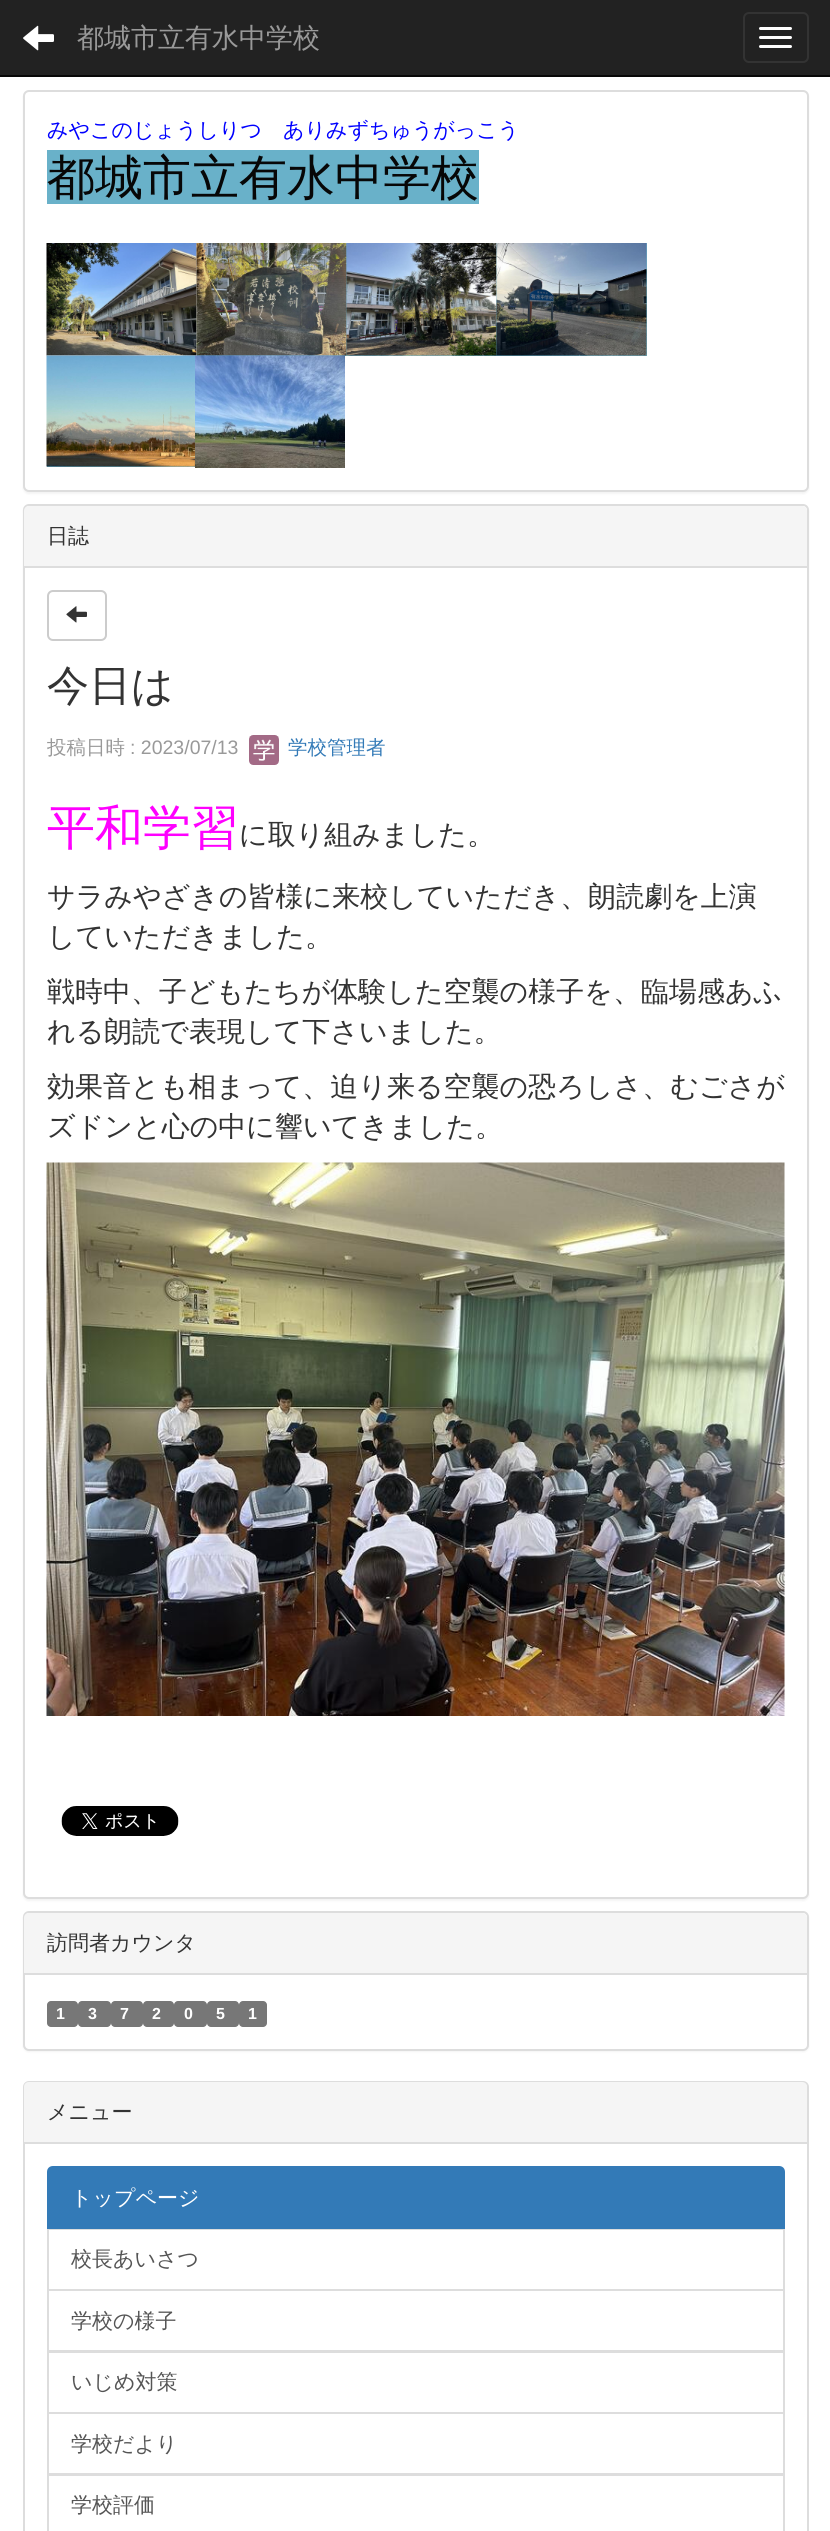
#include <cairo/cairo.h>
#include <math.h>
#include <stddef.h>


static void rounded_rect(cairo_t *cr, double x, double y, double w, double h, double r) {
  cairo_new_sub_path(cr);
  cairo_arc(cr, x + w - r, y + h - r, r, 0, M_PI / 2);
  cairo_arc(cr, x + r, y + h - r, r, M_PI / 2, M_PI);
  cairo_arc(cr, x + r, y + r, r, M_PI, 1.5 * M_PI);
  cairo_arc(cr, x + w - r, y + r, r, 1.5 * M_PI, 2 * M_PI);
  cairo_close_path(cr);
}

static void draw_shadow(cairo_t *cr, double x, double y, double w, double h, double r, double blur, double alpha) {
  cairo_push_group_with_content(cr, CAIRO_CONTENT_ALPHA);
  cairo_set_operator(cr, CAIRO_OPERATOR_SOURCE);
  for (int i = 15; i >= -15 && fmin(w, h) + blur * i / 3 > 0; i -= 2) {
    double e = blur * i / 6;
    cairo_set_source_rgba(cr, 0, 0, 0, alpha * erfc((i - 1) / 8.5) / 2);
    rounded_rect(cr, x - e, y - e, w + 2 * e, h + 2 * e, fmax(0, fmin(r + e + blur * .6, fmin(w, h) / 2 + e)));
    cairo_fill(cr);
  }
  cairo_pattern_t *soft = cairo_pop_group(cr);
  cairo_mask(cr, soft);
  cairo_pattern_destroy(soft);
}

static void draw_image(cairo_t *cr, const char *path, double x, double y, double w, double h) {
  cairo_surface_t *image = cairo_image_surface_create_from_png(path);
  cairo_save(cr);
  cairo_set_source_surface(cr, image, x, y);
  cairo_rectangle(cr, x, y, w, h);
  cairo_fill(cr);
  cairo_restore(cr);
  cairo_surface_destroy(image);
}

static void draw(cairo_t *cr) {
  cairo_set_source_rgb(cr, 1, 1, 1);
  cairo_paint(cr);
  cairo_set_source_rgb(cr, 34 / 255.0, 34 / 255.0, 34 / 255.0);
  cairo_rectangle(cr, 0, 0, 830, 75);
  cairo_fill(cr);
  cairo_set_source_rgb(cr, 8 / 255.0, 8 / 255.0, 8 / 255.0);
  cairo_rectangle(cr, 0, 75, 830, 2);
  cairo_fill(cr);
  draw_image(cr, "images/1.png", 23, 25, 31, 26);
  rounded_rect(cr, 744, 13, 64, 49, 5);
  cairo_set_source_rgb(cr, 51 / 255.0, 51 / 255.0, 51 / 255.0);
  cairo_stroke(cr);
  cairo_set_source_rgb(cr, 1, 1, 1);
  rounded_rect(cr, 759, 27, 33, 3, 1.5);
  cairo_fill(cr);
  rounded_rect(cr, 759, 36, 33, 3, 1.5);
  cairo_fill(cr);
  rounded_rect(cr, 759, 45, 33, 3, 1.5);
  cairo_fill(cr);
  cairo_set_source_rgb(cr, 0, 0, 0);
  draw_shadow(cr, 23, 92, 786, 402, 6, 1, 0.05);
  cairo_set_source_rgb(cr, 1, 1, 1);
  rounded_rect(cr, 24, 91, 784, 400, 5);
  cairo_fill_preserve(cr);
  cairo_set_source_rgb(cr, 221 / 255.0, 221 / 255.0, 221 / 255.0);
  cairo_stroke(cr);
  cairo_set_source_rgb(cr, 105 / 255.0, 177 / 255.0, 201 / 255.0);
  cairo_rectangle(cr, 47, 150, 432, 54);
  cairo_fill(cr);
  draw_image(cr, "images/2.png", 46, 243, 151, 113);
  cairo_rectangle(cr, 197, 243, 450, 113);
  cairo_fill(cr);
  draw_image(cr, "images/3.png", 196, 243, 151, 113);
  draw_image(cr, "images/4.png", 346, 243, 151, 113);
  draw_image(cr, "images/5.png", 496, 243, 151, 113);
  cairo_rectangle(cr, 47, 466, 148, 1);
  cairo_fill(cr);
  draw_image(cr, "images/6.png", 46, 355, 149, 112);
  draw_image(cr, "images/7.png", 195, 355, 150, 113);
  cairo_set_source_rgb(cr, 0, 0, 0);
  draw_shadow(cr, 23, 506, 786, 1395, 6, 1, 0.05);
  cairo_set_source_rgb(cr, 1, 1, 1);
  rounded_rect(cr, 24, 505, 784, 1393, 5);
  cairo_fill_preserve(cr);
  cairo_set_source_rgb(cr, 221 / 255.0, 221 / 255.0, 221 / 255.0);
  cairo_stroke(cr);
  cairo_set_source_rgb(cr, 245 / 255.0, 245 / 255.0, 245 / 255.0);
  cairo_new_path(cr);
  cairo_move_to(cr, 29, 506);
  cairo_line_to(cr, 802, 506);
  cairo_curve_to(cr, 805, 506, 807, 508, 807, 511);
  cairo_line_to(cr, 807, 567);
  cairo_line_to(cr, 24, 567);
  cairo_line_to(cr, 24, 511);
  cairo_curve_to(cr, 24, 508, 26, 506, 29, 506);
  cairo_close_path(cr);
  cairo_fill(cr);
  cairo_set_source_rgb(cr, 221 / 255.0, 221 / 255.0, 221 / 255.0);
  cairo_rectangle(cr, 24, 566, 783, 2);
  cairo_fill(cr);
  rounded_rect(cr, 48, 591, 58, 49, 5);
  cairo_set_source_rgb(cr, 204 / 255.0, 204 / 255.0, 204 / 255.0);
  cairo_stroke(cr);
  draw_image(cr, "images/8.png", 66, 606, 21, 17);
  draw_image(cr, "images/9.png", 249, 735, 30, 30);
  draw_image(cr, "images/10.png", 46, 1162, 739, 554);
  draw_image(cr, "images/11.png", 61, 1806, 118, 30);
  cairo_set_source_rgb(cr, 0, 0, 0);
  draw_shadow(cr, 23, 1913, 786, 139, 6, 1, 0.05);
  cairo_set_source_rgb(cr, 1, 1, 1);
  rounded_rect(cr, 24, 1912, 784, 138, 5);
  cairo_fill_preserve(cr);
  cairo_set_source_rgb(cr, 221 / 255.0, 221 / 255.0, 221 / 255.0);
  cairo_stroke(cr);
  cairo_set_source_rgb(cr, 245 / 255.0, 245 / 255.0, 245 / 255.0);
  cairo_new_path(cr);
  cairo_move_to(cr, 29, 1913);
  cairo_line_to(cr, 802, 1913);
  cairo_curve_to(cr, 805, 1913, 807, 1915, 807, 1918);
  cairo_line_to(cr, 807, 1974);
  cairo_line_to(cr, 24, 1974);
  cairo_line_to(cr, 24, 1918);
  cairo_curve_to(cr, 24, 1915, 26, 1913, 29, 1913);
  cairo_close_path(cr);
  cairo_fill(cr);
  cairo_set_source_rgb(cr, 221 / 255.0, 221 / 255.0, 221 / 255.0);
  cairo_rectangle(cr, 24, 1973, 783, 2);
  cairo_fill(cr);
  cairo_set_source_rgb(cr, 119 / 255.0, 119 / 255.0, 119 / 255.0);
  rounded_rect(cr, 47, 2001, 31, 26, 4);
  cairo_fill(cr);
  rounded_rect(cr, 78, 2001, 33, 26, 4);
  cairo_fill(cr);
  rounded_rect(cr, 111, 2001, 32, 26, 4);
  cairo_fill(cr);
  rounded_rect(cr, 143, 2001, 31, 26, 4);
  cairo_fill(cr);
  rounded_rect(cr, 174, 2001, 33, 26, 4);
  cairo_fill(cr);
  rounded_rect(cr, 207, 2001, 32, 26, 4);
  cairo_fill(cr);
  rounded_rect(cr, 239, 2001, 28, 26, 4);
  cairo_fill(cr);
  rounded_rect(cr, 24, 2082, 784, 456, 5);
  cairo_set_source_rgb(cr, 221 / 255.0, 221 / 255.0, 221 / 255.0);
  cairo_stroke(cr);
  cairo_set_source_rgb(cr, 245 / 255.0, 245 / 255.0, 245 / 255.0);
  cairo_new_path(cr);
  cairo_move_to(cr, 29, 2082);
  cairo_line_to(cr, 802, 2082);
  cairo_curve_to(cr, 805, 2082, 807, 2084, 807, 2087);
  cairo_line_to(cr, 807, 2144);
  cairo_line_to(cr, 24, 2144);
  cairo_line_to(cr, 24, 2087);
  cairo_curve_to(cr, 24, 2084, 26, 2082, 29, 2082);
  cairo_close_path(cr);
  cairo_fill(cr);
  cairo_set_source_rgb(cr, 221 / 255.0, 221 / 255.0, 221 / 255.0);
  cairo_rectangle(cr, 24, 2142, 783, 2);
  cairo_fill(cr);
  cairo_rectangle(cr, 48, 2229, 736, 61);
  cairo_stroke(cr);
  cairo_set_source_rgb(cr, 51 / 255.0, 122 / 255.0, 183 / 255.0);
  cairo_new_path(cr);
  cairo_move_to(cr, 53, 2167);
  cairo_line_to(cr, 779, 2167);
  cairo_curve_to(cr, 782, 2167, 784, 2169, 784, 2172);
  cairo_line_to(cr, 784, 2228);
  cairo_line_to(cr, 48, 2228);
  cairo_line_to(cr, 48, 2172);
  cairo_curve_to(cr, 48, 2169, 50, 2167, 53, 2167);
  cairo_close_path(cr);
  cairo_fill_preserve(cr);
  cairo_stroke(cr);
  cairo_rectangle(cr, 48, 2290, 736, 61);
  cairo_set_source_rgb(cr, 221 / 255.0, 221 / 255.0, 221 / 255.0);
  cairo_stroke(cr);
  cairo_rectangle(cr, 48, 2352, 736, 61);
  cairo_stroke(cr);
  cairo_rectangle(cr, 48, 2413, 736, 61);
  cairo_stroke(cr);
  cairo_rectangle(cr, 48, 2475, 736, 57);
  cairo_stroke(cr);
  cairo_select_font_face(cr, "WenQuanYi Zen Hei Medium", CAIRO_FONT_SLANT_NORMAL, CAIRO_FONT_WEIGHT_NORMAL);
  cairo_set_font_size(cr, 27);
  cairo_set_source_rgb(cr, 153 / 255.0, 153 / 255.0, 153 / 255.0);
  cairo_move_to(cr, 77, 47);
  cairo_show_text(cr, "都城市立有水中学校");
  cairo_set_font_size(cr, 21);
  cairo_set_source_rgb(cr, 0, 0, 1);
  cairo_move_to(cr, 47, 137);
  cairo_show_text(cr, "みやこのじょうしりつ　ありみずちゅうがっこう");
  cairo_set_font_size(cr, 48);
  cairo_set_source_rgb(cr, 7 / 255.0, 7 / 255.0, 7 / 255.0);
  cairo_move_to(cr, 47, 194);
  cairo_show_text(cr, "都城市立有水中学校");
  cairo_set_font_size(cr, 21);
  cairo_set_source_rgb(cr, 51 / 255.0, 51 / 255.0, 51 / 255.0);
  cairo_move_to(cr, 47, 543);
  cairo_show_text(cr, "日誌");
  cairo_set_font_size(cr, 42);
  cairo_move_to(cr, 47, 700);
  cairo_show_text(cr, "今日は");
  cairo_set_font_size(cr, 19.5);
  cairo_set_source_rgb(cr, 153 / 255.0, 153 / 255.0, 153 / 255.0);
  cairo_move_to(cr, 47, 754);
  cairo_show_text(cr, "投稿日時");
  cairo_select_font_face(cr, "Liberation Sans", CAIRO_FONT_SLANT_NORMAL, CAIRO_FONT_WEIGHT_NORMAL);
  cairo_move_to(cr, 130, 754);
  cairo_show_text(cr, ": 2023/07/13");
  cairo_select_font_face(cr, "WenQuanYi Zen Hei Medium", CAIRO_FONT_SLANT_NORMAL, CAIRO_FONT_WEIGHT_NORMAL);
  cairo_set_source_rgb(cr, 51 / 255.0, 122 / 255.0, 183 / 255.0);
  cairo_move_to(cr, 288, 754);
  cairo_show_text(cr, "学校管理者");
  cairo_set_font_size(cr, 48);
  cairo_set_source_rgb(cr, 1, 0, 1);
  cairo_move_to(cr, 47, 844);
  cairo_show_text(cr, "平和学習");
  cairo_set_font_size(cr, 28);
  cairo_set_source_rgb(cr, 51 / 255.0, 51 / 255.0, 51 / 255.0);
  cairo_move_to(cr, 239, 844);
  cairo_show_text(cr, "に取り組みました。");
  cairo_move_to(cr, 47, 906);
  cairo_show_text(cr, "サラみやざきの皆様に来校していただき、朗読劇を上演");
  cairo_move_to(cr, 47, 946);
  cairo_show_text(cr, "していただきました。");
  cairo_move_to(cr, 47, 1001);
  cairo_show_text(cr, "戦時中、子どもたちが体験した空襲の様子を、臨場感あふ");
  cairo_move_to(cr, 47, 1041);
  cairo_show_text(cr, "れる朗読で表現して下さいました。");
  cairo_move_to(cr, 47, 1096);
  cairo_show_text(cr, "効果音とも相まって、迫り来る空襲の恐ろしさ、むごさが");
  cairo_move_to(cr, 47, 1136);
  cairo_show_text(cr, "ズドンと心の中に響いてきました。");
  cairo_set_font_size(cr, 21);
  cairo_move_to(cr, 47, 1950);
  cairo_show_text(cr, "訪問者カウンタ");
  cairo_select_font_face(cr, "Liberation Sans", CAIRO_FONT_SLANT_NORMAL, CAIRO_FONT_WEIGHT_BOLD);
  cairo_set_font_size(cr, 16);
  cairo_set_source_rgb(cr, 1, 1, 1);
  cairo_move_to(cr, 56, 2019);
  cairo_show_text(cr, "1");
  cairo_move_to(cr, 88, 2019);
  cairo_show_text(cr, "3");
  cairo_move_to(cr, 120, 2019);
  cairo_show_text(cr, "7");
  cairo_move_to(cr, 152, 2019);
  cairo_show_text(cr, "2");
  cairo_move_to(cr, 184, 2019);
  cairo_show_text(cr, "0");
  cairo_move_to(cr, 216, 2019);
  cairo_show_text(cr, "5");
  cairo_move_to(cr, 248, 2019);
  cairo_show_text(cr, "1");
  cairo_select_font_face(cr, "WenQuanYi Zen Hei Medium", CAIRO_FONT_SLANT_NORMAL, CAIRO_FONT_WEIGHT_NORMAL);
  cairo_set_font_size(cr, 21);
  cairo_set_source_rgb(cr, 51 / 255.0, 51 / 255.0, 51 / 255.0);
  cairo_move_to(cr, 47, 2119);
  cairo_show_text(cr, "メニュー");
  cairo_set_source_rgb(cr, 1, 1, 1);
  cairo_move_to(cr, 71, 2205);
  cairo_show_text(cr, "トップページ");
  cairo_set_source_rgb(cr, 85 / 255.0, 85 / 255.0, 85 / 255.0);
  cairo_move_to(cr, 71, 2266);
  cairo_show_text(cr, "校長あいさつ");
  cairo_move_to(cr, 71, 2328);
  cairo_show_text(cr, "学校の様子");
  cairo_move_to(cr, 71, 2389);
  cairo_show_text(cr, "いじめ対策");
  cairo_move_to(cr, 71, 2451);
  cairo_show_text(cr, "学校だより");
  cairo_move_to(cr, 71, 2512);
  cairo_show_text(cr, "学校評価");
}

int main(void) {
  cairo_surface_t *surface = cairo_image_surface_create(CAIRO_FORMAT_RGB24, 830, 2531);
  cairo_t *cr = cairo_create(surface);
  cairo_font_options_t *options = cairo_font_options_create();
  cairo_font_options_set_hint_metrics(options, CAIRO_HINT_METRICS_OFF);
  cairo_font_options_set_hint_style(options, CAIRO_HINT_STYLE_NONE);
  cairo_set_font_options(cr, options);
  cairo_set_miter_limit(cr, 4);
  draw(cr);
  cairo_surface_write_to_png(surface, "out.png");
  cairo_font_options_destroy(options);
  cairo_destroy(cr);
  cairo_surface_destroy(surface);
  return 0;
}
